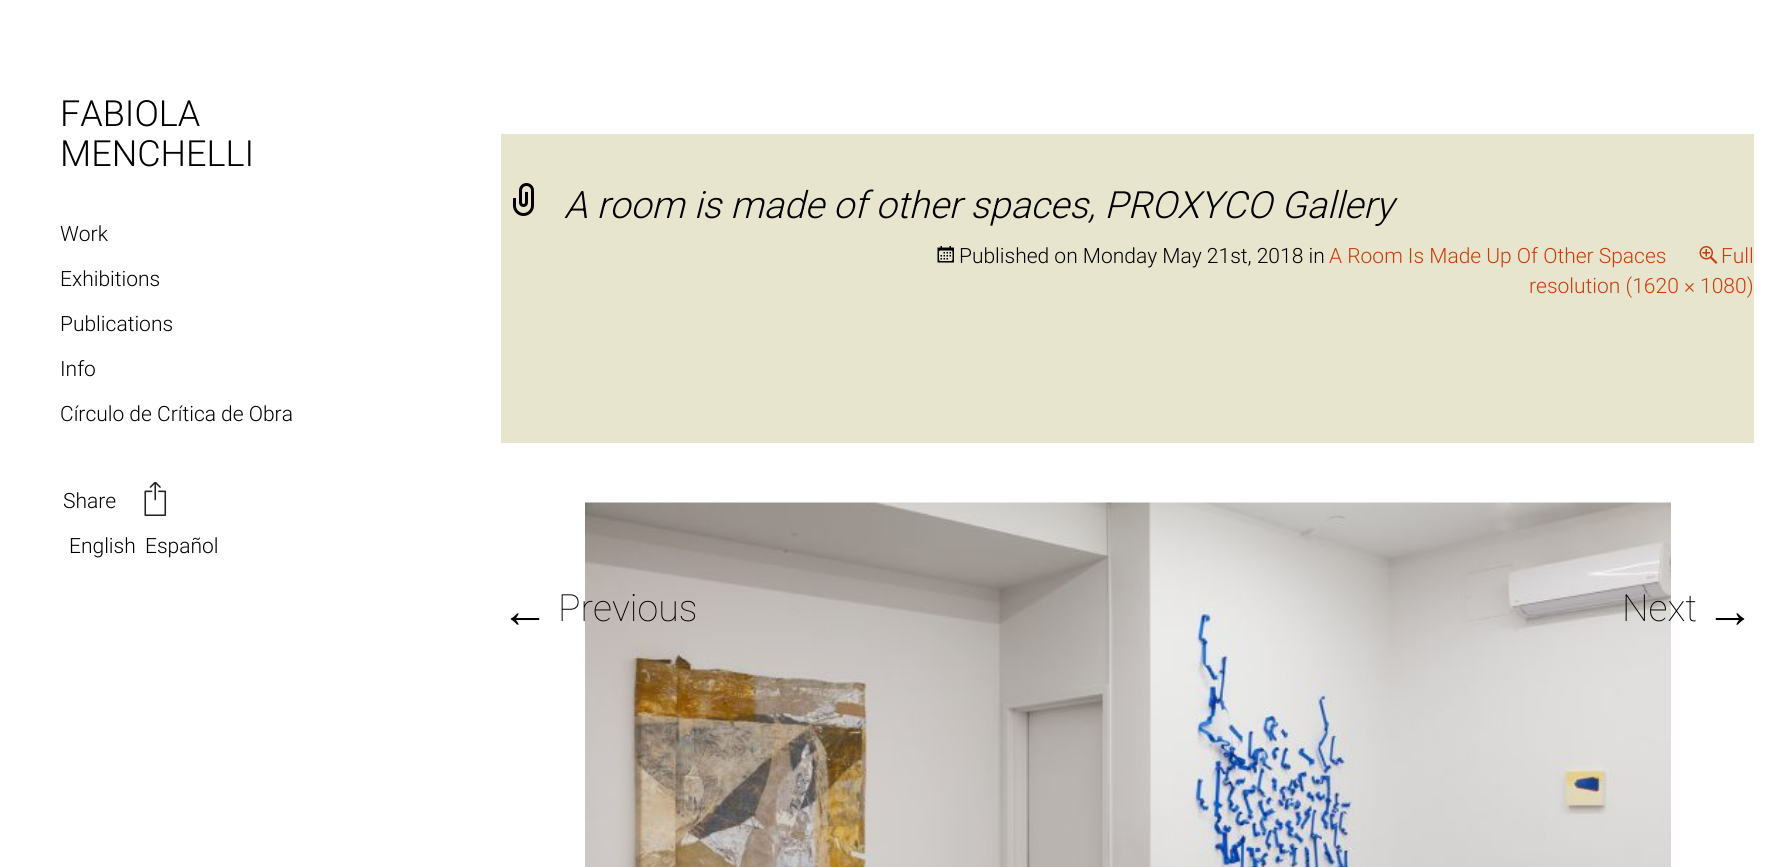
#include <cairo/cairo.h>
#include <math.h>
#include <stddef.h>


static void draw_image(cairo_t *cr, const char *path, double x, double y, double w, double h) {
  cairo_surface_t *image = cairo_image_surface_create_from_png(path);
  cairo_save(cr);
  cairo_set_source_surface(cr, image, x, y);
  cairo_rectangle(cr, x, y, w, h);
  cairo_fill(cr);
  cairo_restore(cr);
  cairo_surface_destroy(image);
}

static void draw(cairo_t *cr) {
  cairo_set_source_rgb(cr, 1, 1, 1);
  cairo_paint(cr);
  draw_image(cr, "images/1.png", 144, 482, 23, 34);
  cairo_set_source_rgb(cr, 232 / 255.0, 229 / 255.0, 206 / 255.0);
  cairo_rectangle(cr, 501, 134, 1253, 309);
  cairo_fill(cr);
  draw_image(cr, "images/2.png", 513, 183, 21, 33);
  draw_image(cr, "images/3.png", 937, 246, 17, 17);
  draw_image(cr, "images/4.png", 1699, 246, 19, 18);
  draw_image(cr, "images/5.png", 585, 502, 1086, 365);
  cairo_select_font_face(cr, "Roboto Light", CAIRO_FONT_SLANT_NORMAL, CAIRO_FONT_WEIGHT_NORMAL);
  cairo_set_font_size(cr, 36);
  cairo_set_source_rgb(cr, 0, 0, 0);
  cairo_move_to(cr, 60, 126);
  cairo_show_text(cr, "FABIOLA");
  cairo_move_to(cr, 60, 166);
  cairo_show_text(cr, "MENCHELLI");
  cairo_set_font_size(cr, 21);
  cairo_move_to(cr, 60, 241);
  cairo_show_text(cr, "Work");
  cairo_move_to(cr, 60, 286);
  cairo_show_text(cr, "Exhibitions");
  cairo_move_to(cr, 60, 331);
  cairo_show_text(cr, "Publications");
  cairo_move_to(cr, 60, 376);
  cairo_show_text(cr, "Info");
  cairo_move_to(cr, 60, 421);
  cairo_show_text(cr, "Círculo de Crítica de Obra");
  cairo_move_to(cr, 63, 508);
  cairo_show_text(cr, "Share");
  cairo_move_to(cr, 69, 553);
  cairo_show_text(cr, "English");
  cairo_move_to(cr, 145, 553);
  cairo_show_text(cr, "Español");
  cairo_select_font_face(cr, "Roboto Light", CAIRO_FONT_SLANT_ITALIC, CAIRO_FONT_WEIGHT_NORMAL);
  cairo_set_font_size(cr, 37.5);
  cairo_move_to(cr, 564, 218);
  cairo_show_text(cr, "A room is made of other spaces, PROXYCO Gallery");
  cairo_select_font_face(cr, "Roboto Light", CAIRO_FONT_SLANT_NORMAL, CAIRO_FONT_WEIGHT_NORMAL);
  cairo_set_font_size(cr, 21);
  cairo_move_to(cr, 959, 263);
  cairo_show_text(cr, "Published on Monday May 21st, 2018 in");
  cairo_set_source_rgb(cr, 202 / 255.0, 60 / 255.0, 8 / 255.0);
  cairo_move_to(cr, 1329, 263);
  cairo_show_text(cr, "A Room Is Made Up Of Other Spaces");
  cairo_move_to(cr, 1721, 263);
  cairo_show_text(cr, "Full");
  cairo_move_to(cr, 1529, 293);
  cairo_show_text(cr, "resolution (1620 × 1080)");
  cairo_select_font_face(cr, "Liberation Sans", CAIRO_FONT_SLANT_NORMAL, CAIRO_FONT_WEIGHT_NORMAL);
  cairo_set_font_size(cr, 48);
  cairo_set_source_rgb(cr, 0, 0, 0);
  cairo_move_to(cr, 501, 627);
  cairo_show_text(cr, "←");
  cairo_select_font_face(cr, "Roboto Thin", CAIRO_FONT_SLANT_NORMAL, CAIRO_FONT_WEIGHT_NORMAL);
  cairo_set_font_size(cr, 37.5);
  cairo_move_to(cr, 558, 621);
  cairo_show_text(cr, "Previous");
  cairo_move_to(cr, 1622, 621);
  cairo_show_text(cr, "Next");
  cairo_select_font_face(cr, "Liberation Sans", CAIRO_FONT_SLANT_NORMAL, CAIRO_FONT_WEIGHT_NORMAL);
  cairo_set_font_size(cr, 48);
  cairo_move_to(cr, 1706, 627);
  cairo_show_text(cr, "→");
}

int main(void) {
  cairo_surface_t *surface = cairo_image_surface_create(CAIRO_FORMAT_RGB24, 1789, 867);
  cairo_t *cr = cairo_create(surface);
  cairo_font_options_t *options = cairo_font_options_create();
  cairo_font_options_set_hint_metrics(options, CAIRO_HINT_METRICS_OFF);
  cairo_font_options_set_hint_style(options, CAIRO_HINT_STYLE_NONE);
  cairo_set_font_options(cr, options);
  cairo_set_miter_limit(cr, 4);
  draw(cr);
  cairo_surface_write_to_png(surface, "out.png");
  cairo_font_options_destroy(options);
  cairo_destroy(cr);
  cairo_surface_destroy(surface);
  return 0;
}
